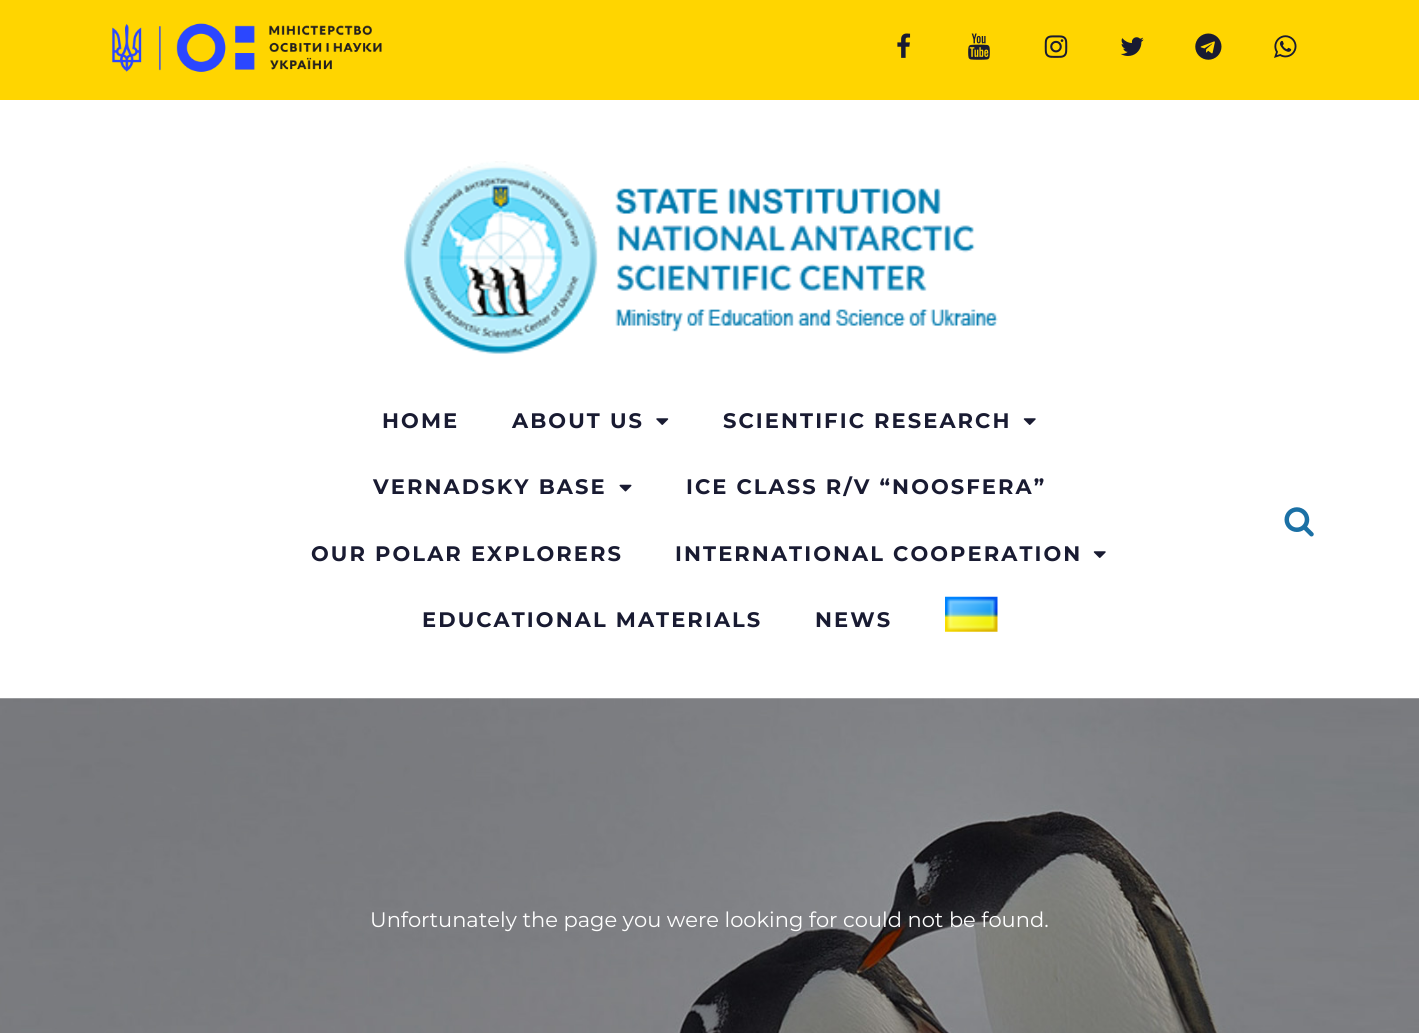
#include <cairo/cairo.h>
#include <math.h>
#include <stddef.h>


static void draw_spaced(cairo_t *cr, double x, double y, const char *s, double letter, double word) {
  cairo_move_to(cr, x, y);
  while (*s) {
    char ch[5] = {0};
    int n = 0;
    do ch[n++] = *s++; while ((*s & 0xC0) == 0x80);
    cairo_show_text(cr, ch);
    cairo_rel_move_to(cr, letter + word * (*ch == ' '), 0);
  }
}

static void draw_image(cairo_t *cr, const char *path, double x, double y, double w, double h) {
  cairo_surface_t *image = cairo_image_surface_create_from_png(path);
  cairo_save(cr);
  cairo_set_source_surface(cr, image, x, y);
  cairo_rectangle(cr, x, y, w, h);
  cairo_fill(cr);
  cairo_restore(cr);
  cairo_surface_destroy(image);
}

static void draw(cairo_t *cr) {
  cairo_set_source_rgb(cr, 1, 1, 1);
  cairo_paint(cr);
  cairo_set_source_rgb(cr, 1, 213 / 255.0, 0);
  cairo_rectangle(cr, 0, 0, 1419, 100);
  cairo_fill(cr);
  draw_image(cr, "images/1.png", 112, 23, 270, 49);
  draw_image(cr, "images/2.png", 897, 33, 14, 25);
  draw_image(cr, "images/3.png", 968, 33, 22, 27);
  draw_image(cr, "images/4.png", 1044, 35, 24, 23);
  draw_image(cr, "images/5.png", 1120, 37, 24, 19);
  draw_image(cr, "images/6.png", 1195, 33, 27, 27);
  draw_image(cr, "images/7.png", 1274, 35, 23, 23);
  draw_image(cr, "images/8.png", 404, 161, 594, 193);
  draw_image(cr, "images/9.png", 656, 418, 13, 7);
  draw_image(cr, "images/10.png", 1023, 418, 13, 7);
  draw_image(cr, "images/11.png", 619, 484, 13, 8);
  draw_image(cr, "images/10.png", 1093, 551, 13, 7);
  draw_image(cr, "images/12.png", 945, 596, 53, 36);
  draw_image(cr, "images/13.png", 1284, 507, 30, 30);
  draw_image(cr, "images/14.png", 0, 698, 1419, 335);
  cairo_select_font_face(cr, "Montserrat", CAIRO_FONT_SLANT_NORMAL, CAIRO_FONT_WEIGHT_BOLD);
  cairo_set_font_size(cr, 21);
  cairo_set_source_rgb(cr, 25 / 255.0, 27 / 255.0, 50 / 255.0);
  draw_spaced(cr, 382, 428, "HOME", 2.1, 0);
  draw_spaced(cr, 512, 428, "ABOUT US", 2.1, 0);
  draw_spaced(cr, 723, 428, "SCIENTIFIC RESEARCH", 2.1, 0);
  draw_spaced(cr, 373, 494, "VERNADSKY BASE", 2.1, 0);
  draw_spaced(cr, 686, 494, "ICE CLASS R/V “NOOSFERA”", 2.1, 0);
  draw_spaced(cr, 311, 561, "OUR POLAR EXPLORERS", 2.1, 0);
  draw_spaced(cr, 675, 561, "INTERNATIONAL COOPERATION", 2.1, 0);
  draw_spaced(cr, 422, 627, "EDUCATIONAL MATERIALS", 2.1, 0);
  draw_spaced(cr, 815, 627, "NEWS", 2.1, 0);
  cairo_select_font_face(cr, "Montserrat", CAIRO_FONT_SLANT_NORMAL, CAIRO_FONT_WEIGHT_NORMAL);
  cairo_set_source_rgb(cr, 1, 1, 1);
  cairo_move_to(cr, 370, 927);
  cairo_show_text(cr, "Unfortunately the page you were looking for could not be found.");
}

int main(void) {
  cairo_surface_t *surface = cairo_image_surface_create(CAIRO_FORMAT_RGB24, 1419, 1033);
  cairo_t *cr = cairo_create(surface);
  cairo_font_options_t *options = cairo_font_options_create();
  cairo_font_options_set_hint_metrics(options, CAIRO_HINT_METRICS_OFF);
  cairo_font_options_set_hint_style(options, CAIRO_HINT_STYLE_NONE);
  cairo_set_font_options(cr, options);
  cairo_set_miter_limit(cr, 4);
  draw(cr);
  cairo_surface_write_to_png(surface, "out.png");
  cairo_font_options_destroy(options);
  cairo_destroy(cr);
  cairo_surface_destroy(surface);
  return 0;
}
